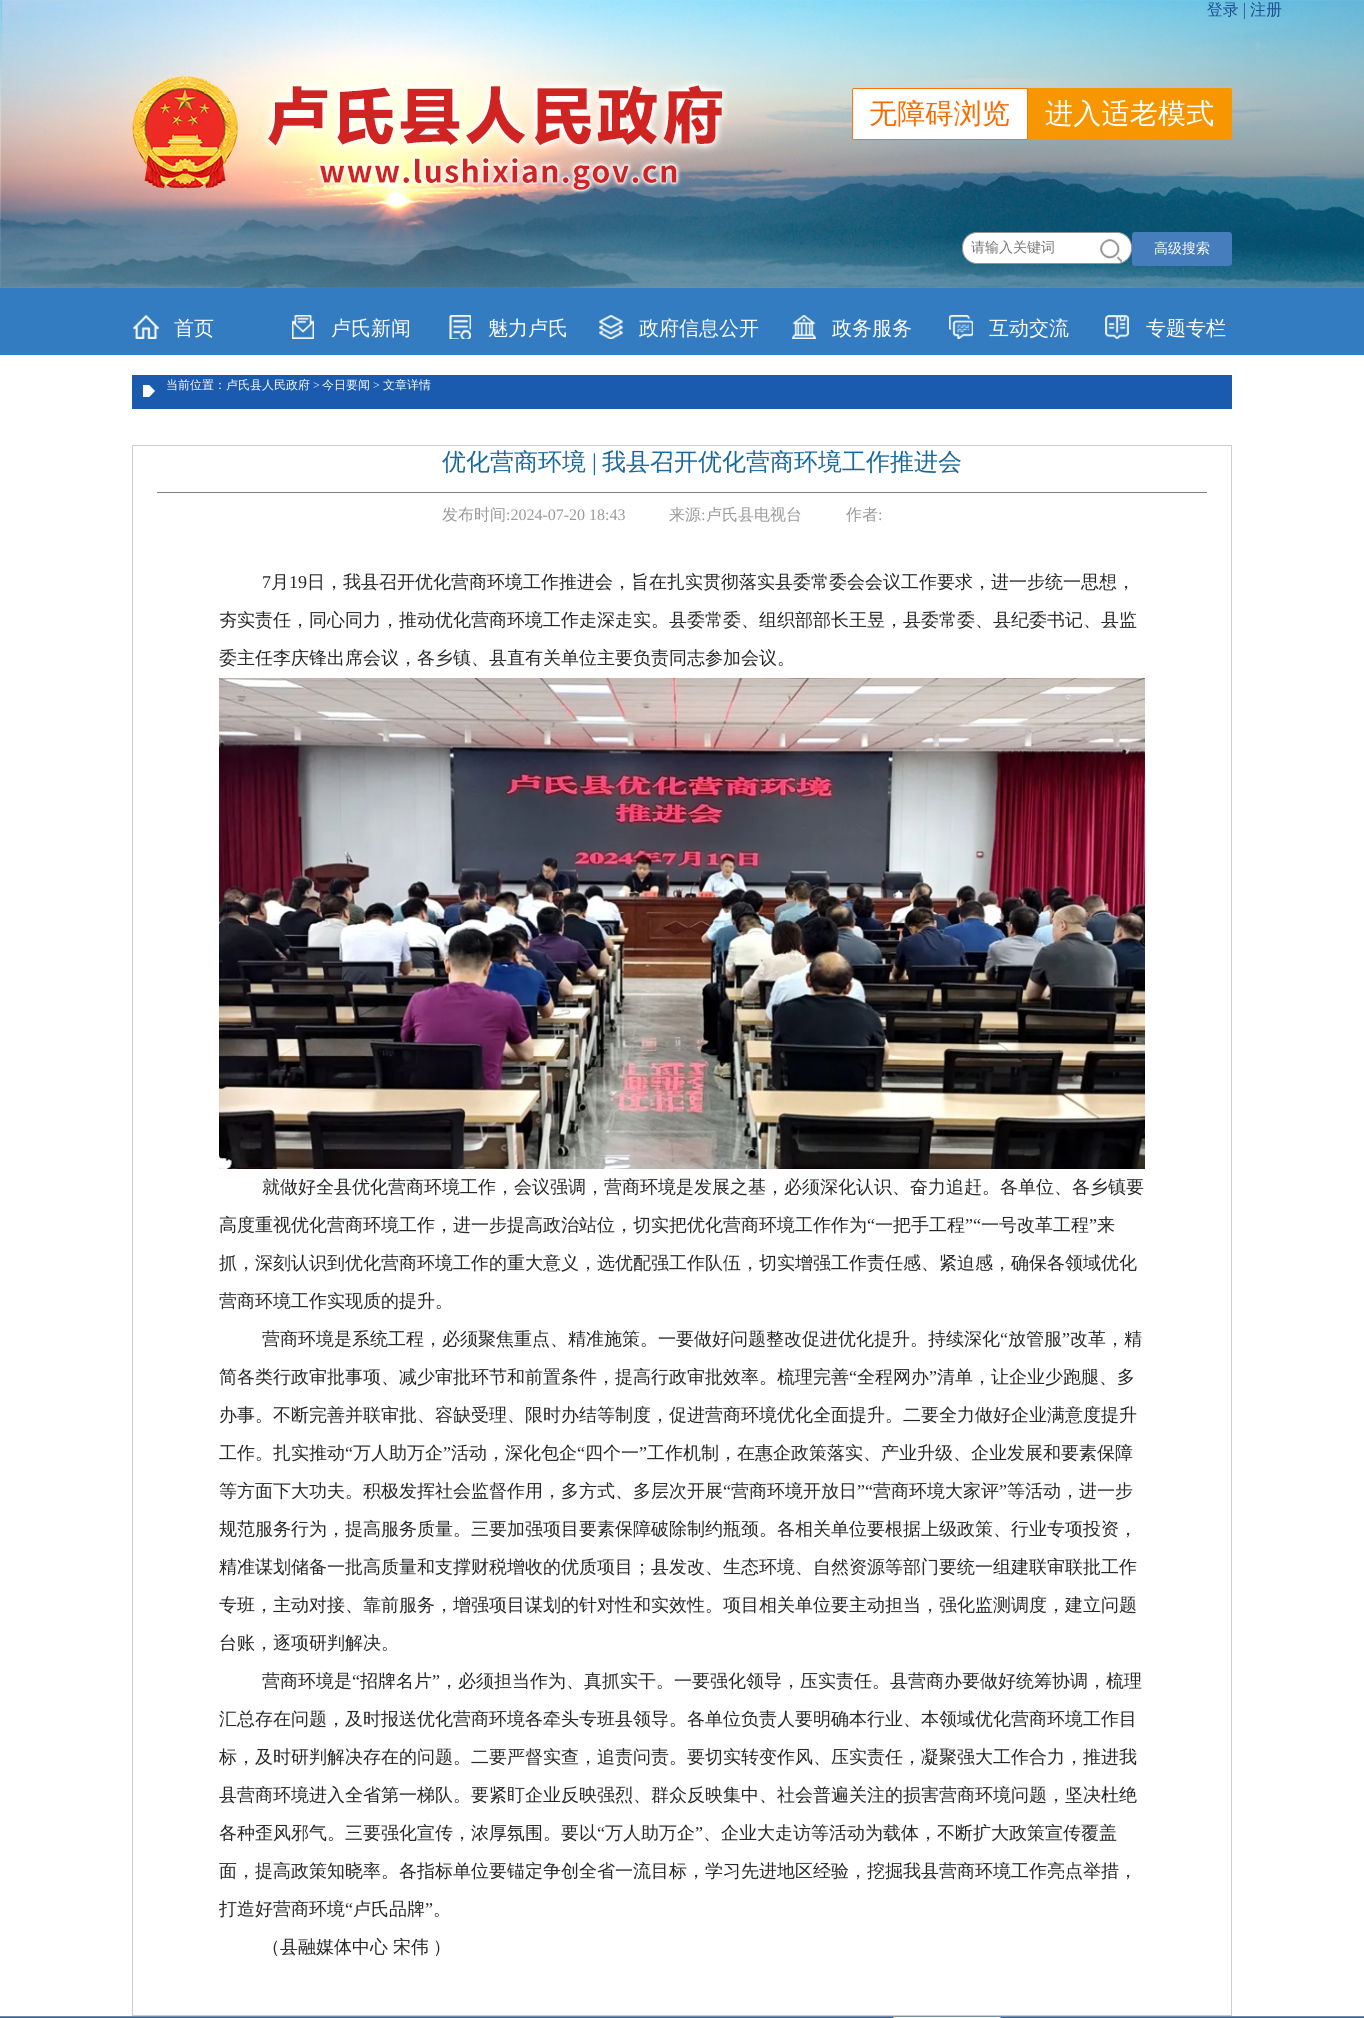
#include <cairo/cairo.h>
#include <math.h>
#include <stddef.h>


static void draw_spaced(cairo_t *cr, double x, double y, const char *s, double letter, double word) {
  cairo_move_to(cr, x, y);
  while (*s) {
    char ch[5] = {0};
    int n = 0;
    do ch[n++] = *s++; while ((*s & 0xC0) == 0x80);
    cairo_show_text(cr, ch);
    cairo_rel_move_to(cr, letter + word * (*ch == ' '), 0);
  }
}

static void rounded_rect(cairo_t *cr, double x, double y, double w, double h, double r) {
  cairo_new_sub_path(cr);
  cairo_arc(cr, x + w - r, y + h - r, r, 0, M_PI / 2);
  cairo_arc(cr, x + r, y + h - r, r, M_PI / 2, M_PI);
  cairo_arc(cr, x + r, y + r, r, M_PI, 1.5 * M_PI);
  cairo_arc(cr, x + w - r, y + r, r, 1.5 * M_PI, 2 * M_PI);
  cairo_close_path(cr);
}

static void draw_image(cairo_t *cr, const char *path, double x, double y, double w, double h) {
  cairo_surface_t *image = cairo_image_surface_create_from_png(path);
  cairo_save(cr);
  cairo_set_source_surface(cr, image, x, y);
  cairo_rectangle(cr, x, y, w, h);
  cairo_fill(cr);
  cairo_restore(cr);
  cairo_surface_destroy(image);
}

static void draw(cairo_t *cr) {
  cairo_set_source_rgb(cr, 1, 1, 1);
  cairo_paint(cr);
  draw_image(cr, "images/2.png", 0, 0, 1364, 288);
  draw_image(cr, "images/1.png", 1207, 1, 75, 18);
  draw_image(cr, "images/3.png", 132, 76, 596, 119);
  cairo_set_source_rgb(cr, 1, 1, 1);
  cairo_new_path(cr);
  cairo_move_to(cr, 854, 88.5);
  cairo_line_to(cr, 1027.5, 88.5);
  cairo_line_to(cr, 1027.5, 139.5);
  cairo_line_to(cr, 854, 139.5);
  cairo_curve_to(cr, 853, 139.5, 852.5, 139, 852.5, 138);
  cairo_line_to(cr, 852.5, 90);
  cairo_curve_to(cr, 852.5, 89, 853, 88.5, 854, 88.5);
  cairo_close_path(cr);
  cairo_fill_preserve(cr);
  cairo_set_source_rgb(cr, 252 / 255.0, 116 / 255.0, 13 / 255.0);
  cairo_set_line_width(cr, 1);
  cairo_stroke(cr);
  cairo_set_source_rgb(cr, 247 / 255.0, 150 / 255.0, 0);
  cairo_new_path(cr);
  cairo_move_to(cr, 1028.5, 88.5);
  cairo_line_to(cr, 1230, 88.5);
  cairo_curve_to(cr, 1231, 88.5, 1231.5, 89, 1231.5, 90);
  cairo_line_to(cr, 1231.5, 138);
  cairo_curve_to(cr, 1231.5, 139, 1231, 139.5, 1230, 139.5);
  cairo_line_to(cr, 1028.5, 139.5);
  cairo_close_path(cr);
  cairo_fill_preserve(cr);
  cairo_stroke(cr);
  cairo_set_source_rgb(cr, 1, 1, 1);
  rounded_rect(cr, 962.5, 232.5, 169, 31, 14.5);
  cairo_fill_preserve(cr);
  cairo_set_source_rgb(cr, 149 / 255.0, 149 / 255.0, 149 / 255.0);
  cairo_stroke(cr);
  draw_image(cr, "images/4.png", 1100, 239, 22, 23);
  cairo_set_source_rgb(cr, 69 / 255.0, 125 / 255.0, 189 / 255.0);
  rounded_rect(cr, 1132, 232, 100, 34, 3);
  cairo_fill(cr);
  cairo_set_source_rgb(cr, 52 / 255.0, 124 / 255.0, 194 / 255.0);
  cairo_rectangle(cr, 0, 288, 1364, 67);
  cairo_fill(cr);
  draw_image(cr, "images/5.png", 133, 315, 26, 24);
  draw_image(cr, "images/6.png", 292, 315, 22, 24);
  draw_image(cr, "images/7.png", 449, 315, 22, 24);
  draw_image(cr, "images/8.png", 599, 315, 24, 24);
  draw_image(cr, "images/9.png", 792, 315, 24, 24);
  draw_image(cr, "images/10.png", 949, 315, 24, 24);
  draw_image(cr, "images/11.png", 1105, 315, 24, 24);
  cairo_set_source_rgb(cr, 26 / 255.0, 91 / 255.0, 175 / 255.0);
  cairo_rectangle(cr, 132, 375, 1100, 34);
  cairo_fill(cr);
  draw_image(cr, "images/12.png", 143, 385, 12, 12);
  cairo_rectangle(cr, 132.5, 445.5, 1099, 1570);
  cairo_set_source_rgb(cr, 205 / 255.0, 205 / 255.0, 205 / 255.0);
  cairo_stroke(cr);
  cairo_set_source_rgb(cr, 129 / 255.0, 129 / 255.0, 129 / 255.0);
  cairo_rectangle(cr, 157, 492, 1050, 1);
  cairo_fill(cr);
  draw_image(cr, "images/13.png", 219, 678, 926, 491);
  cairo_set_source_rgb(cr, 17 / 255.0, 104 / 255.0, 203 / 255.0);
  cairo_rectangle(cr, 0, 2017, 1364, 1);
  cairo_fill(cr);
  cairo_set_source_rgb(cr, 117 / 255.0, 141 / 255.0, 167 / 255.0);
  cairo_rectangle(cr, 0, 2016, 1364, 1);
  cairo_fill(cr);
  draw_image(cr, "images/14.png", 892, 2017, 110, 1);
  cairo_select_font_face(cr, "WenQuanYi Zen Hei Medium", CAIRO_FONT_SLANT_NORMAL, CAIRO_FONT_WEIGHT_NORMAL);
  cairo_set_font_size(cr, 28);
  cairo_set_source_rgb(cr, 247 / 255.0, 107 / 255.0, 0);
  draw_spaced(cr, 869, 123, "无障碍浏览", 0.25, 0);
  cairo_set_source_rgb(cr, 1, 1, 1);
  draw_spaced(cr, 1045, 123, "进入适老模式", 0.25, 0);
  cairo_set_font_size(cr, 14);
  cairo_set_source_rgb(cr, 117 / 255.0, 117 / 255.0, 117 / 255.0);
  cairo_move_to(cr, 971, 252);
  cairo_show_text(cr, "请输入关键词");
  cairo_set_source_rgb(cr, 1, 1, 1);
  cairo_move_to(cr, 1154, 253);
  cairo_show_text(cr, "高级搜索");
  cairo_set_font_size(cr, 20);
  cairo_move_to(cr, 174, 335);
  cairo_show_text(cr, "首页");
  cairo_move_to(cr, 331, 335);
  cairo_show_text(cr, "卢氏新闻");
  cairo_move_to(cr, 488, 335);
  cairo_show_text(cr, "魅力卢氏");
  cairo_move_to(cr, 639, 335);
  cairo_show_text(cr, "政府信息公开");
  cairo_move_to(cr, 832, 335);
  cairo_show_text(cr, "政务服务");
  cairo_move_to(cr, 989, 335);
  cairo_show_text(cr, "互动交流");
  cairo_move_to(cr, 1146, 335);
  cairo_show_text(cr, "专题专栏");
  cairo_set_font_size(cr, 12);
  cairo_move_to(cr, 166, 389);
  cairo_show_text(cr, "当前位置：卢氏县人民政府");
  cairo_select_font_face(cr, "Liberation Serif", CAIRO_FONT_SLANT_NORMAL, CAIRO_FONT_WEIGHT_NORMAL);
  cairo_move_to(cr, 313, 389);
  cairo_show_text(cr, ">");
  cairo_select_font_face(cr, "WenQuanYi Zen Hei Medium", CAIRO_FONT_SLANT_NORMAL, CAIRO_FONT_WEIGHT_NORMAL);
  cairo_move_to(cr, 322, 389);
  cairo_show_text(cr, "今日要闻");
  cairo_select_font_face(cr, "Liberation Serif", CAIRO_FONT_SLANT_NORMAL, CAIRO_FONT_WEIGHT_NORMAL);
  cairo_move_to(cr, 373, 389);
  cairo_show_text(cr, ">");
  cairo_select_font_face(cr, "WenQuanYi Zen Hei Medium", CAIRO_FONT_SLANT_NORMAL, CAIRO_FONT_WEIGHT_NORMAL);
  cairo_move_to(cr, 383, 389);
  cairo_show_text(cr, "文章详情");
  cairo_set_font_size(cr, 24);
  cairo_set_source_rgb(cr, 22 / 255.0, 104 / 255.0, 157 / 255.0);
  cairo_move_to(cr, 442, 470);
  cairo_show_text(cr, "优化营商环境");
  cairo_select_font_face(cr, "Liberation Serif", CAIRO_FONT_SLANT_NORMAL, CAIRO_FONT_WEIGHT_NORMAL);
  cairo_move_to(cr, 592, 470);
  cairo_show_text(cr, "|");
  cairo_select_font_face(cr, "WenQuanYi Zen Hei Medium", CAIRO_FONT_SLANT_NORMAL, CAIRO_FONT_WEIGHT_NORMAL);
  cairo_move_to(cr, 602, 470);
  cairo_show_text(cr, "我县召开优化营商环境工作推进会");
  cairo_set_font_size(cr, 16);
  cairo_set_source_rgb(cr, 153 / 255.0, 153 / 255.0, 153 / 255.0);
  cairo_move_to(cr, 442, 520);
  cairo_show_text(cr, "发布时间");
  cairo_select_font_face(cr, "Liberation Serif", CAIRO_FONT_SLANT_NORMAL, CAIRO_FONT_WEIGHT_NORMAL);
  cairo_move_to(cr, 506, 520);
  cairo_show_text(cr, ":2024-07-20 18:43");
  cairo_select_font_face(cr, "WenQuanYi Zen Hei Medium", CAIRO_FONT_SLANT_NORMAL, CAIRO_FONT_WEIGHT_NORMAL);
  cairo_move_to(cr, 669, 520);
  cairo_show_text(cr, "来源");
  cairo_select_font_face(cr, "Liberation Serif", CAIRO_FONT_SLANT_NORMAL, CAIRO_FONT_WEIGHT_NORMAL);
  cairo_move_to(cr, 701, 520);
  cairo_show_text(cr, ":");
  cairo_select_font_face(cr, "WenQuanYi Zen Hei Medium", CAIRO_FONT_SLANT_NORMAL, CAIRO_FONT_WEIGHT_NORMAL);
  cairo_move_to(cr, 706, 520);
  cairo_show_text(cr, "卢氏县电视台");
  cairo_move_to(cr, 846, 520);
  cairo_show_text(cr, "作者");
  cairo_select_font_face(cr, "Liberation Serif", CAIRO_FONT_SLANT_NORMAL, CAIRO_FONT_WEIGHT_NORMAL);
  cairo_move_to(cr, 878, 520);
  cairo_show_text(cr, ":");
  cairo_set_font_size(cr, 18);
  cairo_set_source_rgb(cr, 38 / 255.0, 38 / 255.0, 38 / 255.0);
  cairo_move_to(cr, 262, 588);
  cairo_show_text(cr, "7");
  cairo_select_font_face(cr, "WenQuanYi Zen Hei Medium", CAIRO_FONT_SLANT_NORMAL, CAIRO_FONT_WEIGHT_NORMAL);
  cairo_move_to(cr, 271, 588);
  cairo_show_text(cr, "月");
  cairo_select_font_face(cr, "Liberation Serif", CAIRO_FONT_SLANT_NORMAL, CAIRO_FONT_WEIGHT_NORMAL);
  cairo_move_to(cr, 289, 588);
  cairo_show_text(cr, "19");
  cairo_select_font_face(cr, "WenQuanYi Zen Hei Medium", CAIRO_FONT_SLANT_NORMAL, CAIRO_FONT_WEIGHT_NORMAL);
  cairo_move_to(cr, 307, 588);
  cairo_show_text(cr, "日，我县召开优化营商环境工作推进会，旨在扎实贯彻落实县委常委会会议工作要求，进一步统一思想，");
  cairo_move_to(cr, 219, 626);
  cairo_show_text(cr, "夯实责任，同心同力，推动优化营商环境工作走深走实。县委常委、组织部部长王昱，县委常委、县纪委书记、县监");
  cairo_move_to(cr, 219, 664);
  cairo_show_text(cr, "委主任李庆锋出席会议，各乡镇、县直有关单位主要负责同志参加会议。");
  cairo_move_to(cr, 262, 1193);
  cairo_show_text(cr, "就做好全县优化营商环境工作，会议强调，营商环境是发展之基，必须深化认识、奋力追赶。各单位、各乡镇要");
  cairo_move_to(cr, 219, 1231);
  cairo_show_text(cr, "高度重视优化营商环境工作，进一步提高政治站位，切实把优化营商环境工作作为");
  cairo_select_font_face(cr, "Liberation Serif", CAIRO_FONT_SLANT_NORMAL, CAIRO_FONT_WEIGHT_NORMAL);
  cairo_move_to(cr, 867, 1231);
  cairo_show_text(cr, "“");
  cairo_select_font_face(cr, "WenQuanYi Zen Hei Medium", CAIRO_FONT_SLANT_NORMAL, CAIRO_FONT_WEIGHT_NORMAL);
  cairo_move_to(cr, 875, 1231);
  cairo_show_text(cr, "一把手工程");
  cairo_select_font_face(cr, "Liberation Serif", CAIRO_FONT_SLANT_NORMAL, CAIRO_FONT_WEIGHT_NORMAL);
  cairo_move_to(cr, 965, 1231);
  cairo_show_text(cr, "”“");
  cairo_select_font_face(cr, "WenQuanYi Zen Hei Medium", CAIRO_FONT_SLANT_NORMAL, CAIRO_FONT_WEIGHT_NORMAL);
  cairo_move_to(cr, 981, 1231);
  cairo_show_text(cr, "一号改革工程");
  cairo_select_font_face(cr, "Liberation Serif", CAIRO_FONT_SLANT_NORMAL, CAIRO_FONT_WEIGHT_NORMAL);
  cairo_move_to(cr, 1089, 1231);
  cairo_show_text(cr, "”");
  cairo_select_font_face(cr, "WenQuanYi Zen Hei Medium", CAIRO_FONT_SLANT_NORMAL, CAIRO_FONT_WEIGHT_NORMAL);
  cairo_move_to(cr, 1097, 1231);
  cairo_show_text(cr, "来");
  cairo_move_to(cr, 219, 1269);
  cairo_show_text(cr, "抓，深刻认识到优化营商环境工作的重大意义，选优配强工作队伍，切实增强工作责任感、紧迫感，确保各领域优化");
  cairo_move_to(cr, 219, 1307);
  cairo_show_text(cr, "营商环境工作实现质的提升。");
  cairo_move_to(cr, 262, 1345);
  cairo_show_text(cr, "营商环境是系统工程，必须聚焦重点、精准施策。一要做好问题整改促进优化提升。持续深化");
  cairo_select_font_face(cr, "Liberation Serif", CAIRO_FONT_SLANT_NORMAL, CAIRO_FONT_WEIGHT_NORMAL);
  cairo_move_to(cr, 1000, 1345);
  cairo_show_text(cr, "“");
  cairo_select_font_face(cr, "WenQuanYi Zen Hei Medium", CAIRO_FONT_SLANT_NORMAL, CAIRO_FONT_WEIGHT_NORMAL);
  cairo_move_to(cr, 1008, 1345);
  cairo_show_text(cr, "放管服");
  cairo_select_font_face(cr, "Liberation Serif", CAIRO_FONT_SLANT_NORMAL, CAIRO_FONT_WEIGHT_NORMAL);
  cairo_move_to(cr, 1062, 1345);
  cairo_show_text(cr, "”");
  cairo_select_font_face(cr, "WenQuanYi Zen Hei Medium", CAIRO_FONT_SLANT_NORMAL, CAIRO_FONT_WEIGHT_NORMAL);
  cairo_move_to(cr, 1070, 1345);
  cairo_show_text(cr, "改革，精");
  cairo_move_to(cr, 219, 1383);
  cairo_show_text(cr, "简各类行政审批事项、减少审批环节和前置条件，提高行政审批效率。梳理完善");
  cairo_select_font_face(cr, "Liberation Serif", CAIRO_FONT_SLANT_NORMAL, CAIRO_FONT_WEIGHT_NORMAL);
  cairo_move_to(cr, 849, 1383);
  cairo_show_text(cr, "“");
  cairo_select_font_face(cr, "WenQuanYi Zen Hei Medium", CAIRO_FONT_SLANT_NORMAL, CAIRO_FONT_WEIGHT_NORMAL);
  cairo_move_to(cr, 857, 1383);
  cairo_show_text(cr, "全程网办");
  cairo_select_font_face(cr, "Liberation Serif", CAIRO_FONT_SLANT_NORMAL, CAIRO_FONT_WEIGHT_NORMAL);
  cairo_move_to(cr, 929, 1383);
  cairo_show_text(cr, "”");
  cairo_select_font_face(cr, "WenQuanYi Zen Hei Medium", CAIRO_FONT_SLANT_NORMAL, CAIRO_FONT_WEIGHT_NORMAL);
  cairo_move_to(cr, 937, 1383);
  cairo_show_text(cr, "清单，让企业少跑腿、多");
  cairo_move_to(cr, 219, 1421);
  cairo_show_text(cr, "办事。不断完善并联审批、容缺受理、限时办结等制度，促进营商环境优化全面提升。二要全力做好企业满意度提升");
  cairo_move_to(cr, 219, 1459);
  cairo_show_text(cr, "工作。扎实推动");
  cairo_select_font_face(cr, "Liberation Serif", CAIRO_FONT_SLANT_NORMAL, CAIRO_FONT_WEIGHT_NORMAL);
  cairo_move_to(cr, 345, 1459);
  cairo_show_text(cr, "“");
  cairo_select_font_face(cr, "WenQuanYi Zen Hei Medium", CAIRO_FONT_SLANT_NORMAL, CAIRO_FONT_WEIGHT_NORMAL);
  cairo_move_to(cr, 353, 1459);
  cairo_show_text(cr, "万人助万企");
  cairo_select_font_face(cr, "Liberation Serif", CAIRO_FONT_SLANT_NORMAL, CAIRO_FONT_WEIGHT_NORMAL);
  cairo_move_to(cr, 443, 1459);
  cairo_show_text(cr, "”");
  cairo_select_font_face(cr, "WenQuanYi Zen Hei Medium", CAIRO_FONT_SLANT_NORMAL, CAIRO_FONT_WEIGHT_NORMAL);
  cairo_move_to(cr, 451, 1459);
  cairo_show_text(cr, "活动，深化包企");
  cairo_select_font_face(cr, "Liberation Serif", CAIRO_FONT_SLANT_NORMAL, CAIRO_FONT_WEIGHT_NORMAL);
  cairo_move_to(cr, 577, 1459);
  cairo_show_text(cr, "“");
  cairo_select_font_face(cr, "WenQuanYi Zen Hei Medium", CAIRO_FONT_SLANT_NORMAL, CAIRO_FONT_WEIGHT_NORMAL);
  cairo_move_to(cr, 585, 1459);
  cairo_show_text(cr, "四个一");
  cairo_select_font_face(cr, "Liberation Serif", CAIRO_FONT_SLANT_NORMAL, CAIRO_FONT_WEIGHT_NORMAL);
  cairo_move_to(cr, 639, 1459);
  cairo_show_text(cr, "”");
  cairo_select_font_face(cr, "WenQuanYi Zen Hei Medium", CAIRO_FONT_SLANT_NORMAL, CAIRO_FONT_WEIGHT_NORMAL);
  cairo_move_to(cr, 647, 1459);
  cairo_show_text(cr, "工作机制，在惠企政策落实、产业升级、企业发展和要素保障");
  cairo_move_to(cr, 219, 1497);
  cairo_show_text(cr, "等方面下大功夫。积极发挥社会监督作用，多方式、多层次开展");
  cairo_select_font_face(cr, "Liberation Serif", CAIRO_FONT_SLANT_NORMAL, CAIRO_FONT_WEIGHT_NORMAL);
  cairo_move_to(cr, 723, 1497);
  cairo_show_text(cr, "“");
  cairo_select_font_face(cr, "WenQuanYi Zen Hei Medium", CAIRO_FONT_SLANT_NORMAL, CAIRO_FONT_WEIGHT_NORMAL);
  cairo_move_to(cr, 731, 1497);
  cairo_show_text(cr, "营商环境开放日");
  cairo_select_font_face(cr, "Liberation Serif", CAIRO_FONT_SLANT_NORMAL, CAIRO_FONT_WEIGHT_NORMAL);
  cairo_move_to(cr, 857, 1497);
  cairo_show_text(cr, "”“");
  cairo_select_font_face(cr, "WenQuanYi Zen Hei Medium", CAIRO_FONT_SLANT_NORMAL, CAIRO_FONT_WEIGHT_NORMAL);
  cairo_move_to(cr, 873, 1497);
  cairo_show_text(cr, "营商环境大家评");
  cairo_select_font_face(cr, "Liberation Serif", CAIRO_FONT_SLANT_NORMAL, CAIRO_FONT_WEIGHT_NORMAL);
  cairo_move_to(cr, 999, 1497);
  cairo_show_text(cr, "”");
  cairo_select_font_face(cr, "WenQuanYi Zen Hei Medium", CAIRO_FONT_SLANT_NORMAL, CAIRO_FONT_WEIGHT_NORMAL);
  cairo_move_to(cr, 1007, 1497);
  cairo_show_text(cr, "等活动，进一步");
  cairo_move_to(cr, 219, 1535);
  cairo_show_text(cr, "规范服务行为，提高服务质量。三要加强项目要素保障破除制约瓶颈。各相关单位要根据上级政策、行业专项投资，");
  cairo_move_to(cr, 219, 1573);
  cairo_show_text(cr, "精准谋划储备一批高质量和支撑财税增收的优质项目；县发改、生态环境、自然资源等部门要统一组建联审联批工作");
  cairo_move_to(cr, 219, 1611);
  cairo_show_text(cr, "专班，主动对接、靠前服务，增强项目谋划的针对性和实效性。项目相关单位要主动担当，强化监测调度，建立问题");
  cairo_move_to(cr, 219, 1649);
  cairo_show_text(cr, "台账，逐项研判解决。");
  cairo_move_to(cr, 262, 1687);
  cairo_show_text(cr, "营商环境是");
  cairo_select_font_face(cr, "Liberation Serif", CAIRO_FONT_SLANT_NORMAL, CAIRO_FONT_WEIGHT_NORMAL);
  cairo_move_to(cr, 352, 1687);
  cairo_show_text(cr, "“");
  cairo_select_font_face(cr, "WenQuanYi Zen Hei Medium", CAIRO_FONT_SLANT_NORMAL, CAIRO_FONT_WEIGHT_NORMAL);
  cairo_move_to(cr, 360, 1687);
  cairo_show_text(cr, "招牌名片");
  cairo_select_font_face(cr, "Liberation Serif", CAIRO_FONT_SLANT_NORMAL, CAIRO_FONT_WEIGHT_NORMAL);
  cairo_move_to(cr, 432, 1687);
  cairo_show_text(cr, "”");
  cairo_select_font_face(cr, "WenQuanYi Zen Hei Medium", CAIRO_FONT_SLANT_NORMAL, CAIRO_FONT_WEIGHT_NORMAL);
  cairo_move_to(cr, 440, 1687);
  cairo_show_text(cr, "，必须担当作为、真抓实干。一要强化领导，压实责任。县营商办要做好统筹协调，梳理");
  cairo_move_to(cr, 219, 1725);
  cairo_show_text(cr, "汇总存在问题，及时报送优化营商环境各牵头专班县领导。各单位负责人要明确本行业、本领域优化营商环境工作目");
  cairo_move_to(cr, 219, 1763);
  cairo_show_text(cr, "标，及时研判解决存在的问题。二要严督实查，追责问责。要切实转变作风、压实责任，凝聚强大工作合力，推进我");
  cairo_move_to(cr, 219, 1801);
  cairo_show_text(cr, "县营商环境进入全省第一梯队。要紧盯企业反映强烈、群众反映集中、社会普遍关注的损害营商环境问题，坚决杜绝");
  cairo_move_to(cr, 219, 1839);
  cairo_show_text(cr, "各种歪风邪气。三要强化宣传，浓厚氛围。要以");
  cairo_select_font_face(cr, "Liberation Serif", CAIRO_FONT_SLANT_NORMAL, CAIRO_FONT_WEIGHT_NORMAL);
  cairo_move_to(cr, 597, 1839);
  cairo_show_text(cr, "“");
  cairo_select_font_face(cr, "WenQuanYi Zen Hei Medium", CAIRO_FONT_SLANT_NORMAL, CAIRO_FONT_WEIGHT_NORMAL);
  cairo_move_to(cr, 605, 1839);
  cairo_show_text(cr, "万人助万企");
  cairo_select_font_face(cr, "Liberation Serif", CAIRO_FONT_SLANT_NORMAL, CAIRO_FONT_WEIGHT_NORMAL);
  cairo_move_to(cr, 695, 1839);
  cairo_show_text(cr, "”");
  cairo_select_font_face(cr, "WenQuanYi Zen Hei Medium", CAIRO_FONT_SLANT_NORMAL, CAIRO_FONT_WEIGHT_NORMAL);
  cairo_move_to(cr, 703, 1839);
  cairo_show_text(cr, "、企业大走访等活动为载体，不断扩大政策宣传覆盖");
  cairo_move_to(cr, 219, 1877);
  cairo_show_text(cr, "面，提高政策知晓率。各指标单位要锚定争创全省一流目标，学习先进地区经验，挖掘我县营商环境工作亮点举措，");
  cairo_move_to(cr, 219, 1915);
  cairo_show_text(cr, "打造好营商环境");
  cairo_select_font_face(cr, "Liberation Serif", CAIRO_FONT_SLANT_NORMAL, CAIRO_FONT_WEIGHT_NORMAL);
  cairo_move_to(cr, 345, 1915);
  cairo_show_text(cr, "“");
  cairo_select_font_face(cr, "WenQuanYi Zen Hei Medium", CAIRO_FONT_SLANT_NORMAL, CAIRO_FONT_WEIGHT_NORMAL);
  cairo_move_to(cr, 353, 1915);
  cairo_show_text(cr, "卢氏品牌");
  cairo_select_font_face(cr, "Liberation Serif", CAIRO_FONT_SLANT_NORMAL, CAIRO_FONT_WEIGHT_NORMAL);
  cairo_move_to(cr, 425, 1915);
  cairo_show_text(cr, "”");
  cairo_select_font_face(cr, "WenQuanYi Zen Hei Medium", CAIRO_FONT_SLANT_NORMAL, CAIRO_FONT_WEIGHT_NORMAL);
  cairo_move_to(cr, 433, 1915);
  cairo_show_text(cr, "。");
  cairo_move_to(cr, 262, 1953);
  cairo_show_text(cr, "（县融媒体中心");
  cairo_move_to(cr, 393, 1953);
  cairo_show_text(cr, "宋伟");
  cairo_move_to(cr, 433, 1953);
  cairo_show_text(cr, "）");
}

int main(void) {
  cairo_surface_t *surface = cairo_image_surface_create(CAIRO_FORMAT_RGB24, 1364, 2018);
  cairo_t *cr = cairo_create(surface);
  cairo_font_options_t *options = cairo_font_options_create();
  cairo_font_options_set_hint_metrics(options, CAIRO_HINT_METRICS_OFF);
  cairo_font_options_set_hint_style(options, CAIRO_HINT_STYLE_NONE);
  cairo_set_font_options(cr, options);
  cairo_set_miter_limit(cr, 4);
  draw(cr);
  cairo_surface_write_to_png(surface, "out.png");
  cairo_font_options_destroy(options);
  cairo_destroy(cr);
  cairo_surface_destroy(surface);
  return 0;
}
